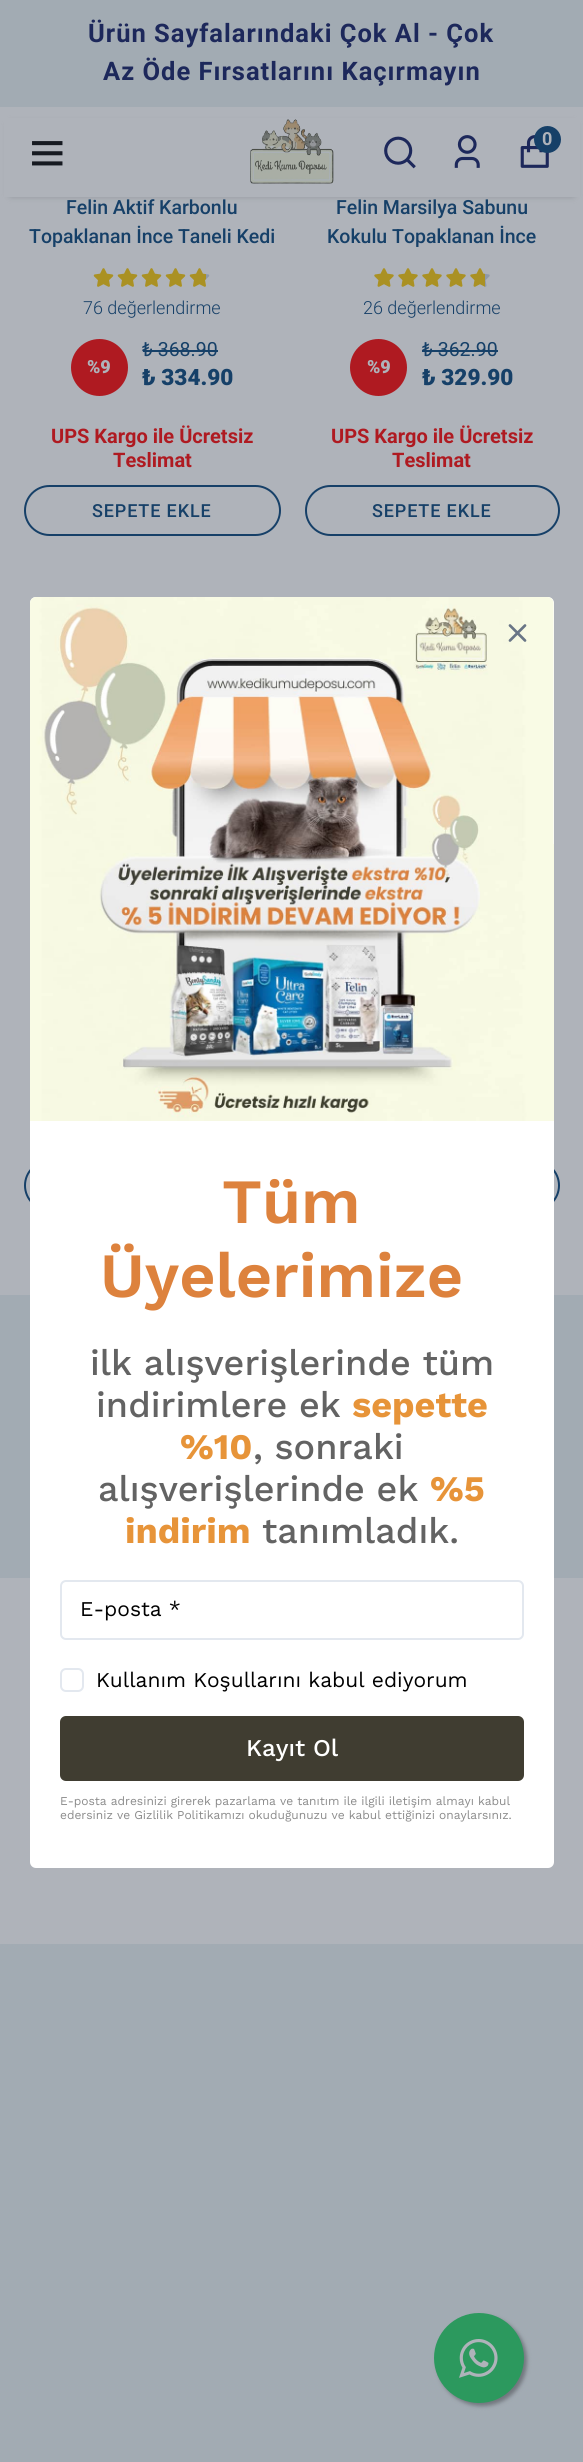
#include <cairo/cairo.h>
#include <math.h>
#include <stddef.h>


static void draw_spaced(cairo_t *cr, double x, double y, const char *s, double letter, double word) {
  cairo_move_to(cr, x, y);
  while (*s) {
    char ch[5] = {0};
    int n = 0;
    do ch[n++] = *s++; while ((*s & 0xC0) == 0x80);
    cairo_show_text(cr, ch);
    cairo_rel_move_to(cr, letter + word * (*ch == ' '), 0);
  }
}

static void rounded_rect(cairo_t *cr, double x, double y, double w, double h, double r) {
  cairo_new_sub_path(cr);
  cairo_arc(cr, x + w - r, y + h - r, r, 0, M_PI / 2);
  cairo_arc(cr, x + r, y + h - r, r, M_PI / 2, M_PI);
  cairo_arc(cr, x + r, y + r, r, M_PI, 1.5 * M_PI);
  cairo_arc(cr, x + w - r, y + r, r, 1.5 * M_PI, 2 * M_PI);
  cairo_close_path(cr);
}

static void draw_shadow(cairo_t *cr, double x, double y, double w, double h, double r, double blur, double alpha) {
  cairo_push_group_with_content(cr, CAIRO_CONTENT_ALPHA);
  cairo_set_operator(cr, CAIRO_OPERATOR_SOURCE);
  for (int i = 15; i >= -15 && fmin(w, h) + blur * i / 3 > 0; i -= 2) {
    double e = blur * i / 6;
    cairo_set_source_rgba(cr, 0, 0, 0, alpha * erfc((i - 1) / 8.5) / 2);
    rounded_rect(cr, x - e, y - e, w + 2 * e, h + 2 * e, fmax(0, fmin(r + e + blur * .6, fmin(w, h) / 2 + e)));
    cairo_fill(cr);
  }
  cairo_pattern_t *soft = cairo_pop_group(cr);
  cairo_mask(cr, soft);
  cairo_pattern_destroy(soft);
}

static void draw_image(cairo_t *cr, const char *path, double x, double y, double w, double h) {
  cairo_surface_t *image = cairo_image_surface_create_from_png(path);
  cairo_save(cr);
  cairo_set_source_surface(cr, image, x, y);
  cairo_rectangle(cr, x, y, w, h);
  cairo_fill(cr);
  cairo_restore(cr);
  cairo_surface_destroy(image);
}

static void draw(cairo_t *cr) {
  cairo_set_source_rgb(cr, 175 / 255.0, 179 / 255.0, 186 / 255.0);
  cairo_paint(cr);
  cairo_set_source_rgb(cr, 162 / 255.0, 171 / 255.0, 179 / 255.0);
  cairo_rectangle(cr, 0, 0, 583, 107);
  cairo_fill(cr);
  cairo_set_source_rgb(cr, 113 / 255.0, 117 / 255.0, 124 / 255.0);
  draw_shadow(cr, 11, 125, 562, 69, 0, 4, 1);
  cairo_set_source_rgb(cr, 175 / 255.0, 179 / 255.0, 186 / 255.0);
  cairo_rectangle(cr, 4, 118, 576, 79);
  cairo_fill(cr);
  draw_image(cr, "images/1.png", 250, 119, 84, 65);
  draw_image(cr, "images/2.png", 384, 136, 32, 33);
  draw_image(cr, "images/3.png", 454, 135, 26, 33);
  draw_image(cr, "images/4.png", 520, 135, 29, 33);
  cairo_set_source_rgb(cr, 22 / 255.0, 64 / 255.0, 104 / 255.0);
  cairo_arc(cr, 547.5, 139.5, 13.5, 0, 2 * M_PI);
  cairo_fill(cr);
  draw_image(cr, "images/5.png", 32, 141, 31, 25);
  draw_image(cr, "images/6.png", 93, 268, 21, 19);
  draw_image(cr, "images/6.png", 117, 268, 21, 19);
  draw_image(cr, "images/6.png", 141, 268, 21, 19);
  draw_image(cr, "images/6.png", 165, 268, 21, 19);
  draw_image(cr, "images/7.png", 189, 268, 21, 19);
  cairo_set_source_rgb(cr, 175 / 255.0, 26 / 255.0, 33 / 255.0);
  cairo_arc(cr, 99.5, 367.5, 28.5, 0, 2 * M_PI);
  cairo_fill(cr);
  cairo_set_source_rgb(cr, 22 / 255.0, 64 / 255.0, 104 / 255.0);
  cairo_rectangle(cr, 143, 350, 75, 2);
  cairo_fill(cr);
  rounded_rect(cr, 25, 486, 255, 49, 24.5);
  cairo_stroke(cr);
  draw_image(cr, "images/8.png", 374, 268, 20, 19);
  draw_image(cr, "images/8.png", 398, 268, 20, 19);
  draw_image(cr, "images/8.png", 422, 268, 20, 19);
  draw_image(cr, "images/8.png", 446, 268, 20, 19);
  draw_image(cr, "images/9.png", 470, 268, 20, 19);
  cairo_set_source_rgb(cr, 175 / 255.0, 26 / 255.0, 33 / 255.0);
  cairo_arc(cr, 378.5, 367.5, 28.5, 0, 2 * M_PI);
  cairo_fill(cr);
  cairo_set_source_rgb(cr, 22 / 255.0, 64 / 255.0, 104 / 255.0);
  cairo_rectangle(cr, 422, 350, 76, 2);
  cairo_fill(cr);
  rounded_rect(cr, 306, 486, 253, 49, 24.5);
  cairo_stroke(cr);
  rounded_rect(cr, 25, 1161, 255, 49, 24.5);
  cairo_stroke(cr);
  rounded_rect(cr, 306, 1161, 253, 49, 24.5);
  cairo_stroke(cr);
  cairo_set_source_rgb(cr, 162 / 255.0, 171 / 255.0, 179 / 255.0);
  cairo_rectangle(cr, 0, 1295, 583, 283);
  cairo_fill(cr);
  cairo_rectangle(cr, 0, 1944, 583, 518);
  cairo_fill(cr);
  cairo_set_source_rgb(cr, 1, 1, 1);
  rounded_rect(cr, 30, 597, 524, 1271, 6);
  cairo_fill(cr);
  draw_image(cr, "images/10.png", 30, 597, 524, 524);
  cairo_new_path(cr);
  cairo_move_to(cr, 525, 625.5);
  cairo_line_to(cr, 510, 640.5);
  cairo_move_to(cr, 510, 625.5);
  cairo_line_to(cr, 525, 640.5);
  cairo_set_source_rgb(cr, 105 / 255.0, 117 / 255.0, 134 / 255.0);
  cairo_set_line_width(cr, 2.7);
  cairo_set_line_cap(cr, CAIRO_LINE_CAP_ROUND);
  cairo_set_line_join(cr, CAIRO_LINE_JOIN_ROUND);
  cairo_stroke(cr);
  rounded_rect(cr, 61, 1581, 462, 58, 5);
  cairo_set_source_rgb(cr, 227 / 255.0, 232 / 255.0, 239 / 255.0);
  cairo_set_line_width(cr, 2);
  cairo_set_line_cap(cr, CAIRO_LINE_CAP_BUTT);
  cairo_set_line_join(cr, CAIRO_LINE_JOIN_MITER);
  cairo_stroke(cr);
  rounded_rect(cr, 61, 1669, 22, 22, 5);
  cairo_stroke(cr);
  cairo_set_source_rgb(cr, 64 / 255.0, 61 / 255.0, 49 / 255.0);
  rounded_rect(cr, 60, 1716, 464, 65, 6);
  cairo_fill(cr);
  cairo_set_source_rgb(cr, 113 / 255.0, 118 / 255.0, 125 / 255.0);
  draw_shadow(cr, 437, 2316, 90, 90, 45, 2, 1);
  cairo_set_source_rgb(cr, 44 / 255.0, 153 / 255.0, 94 / 255.0);
  cairo_arc(cr, 479, 2358, 45, 0, 2 * M_PI);
  cairo_fill(cr);
  draw_image(cr, "images/11.png", 459, 2339, 39, 39);
  cairo_select_font_face(cr, "Roboto", CAIRO_FONT_SLANT_NORMAL, CAIRO_FONT_WEIGHT_BOLD);
  cairo_set_font_size(cr, 25.5);
  cairo_set_source_rgb(cr, 29 / 255.0, 40 / 255.0, 91 / 255.0);
  draw_spaced(cr, 88, 42, "Ürün Sayfalarındaki Çok Al - Çok", 1, 0);
  draw_spaced(cr, 103, 80, "Az Öde Fırsatlarını Kaçırmayın", 1, 0);
  cairo_set_font_size(cr, 18);
  cairo_set_source_rgb(cr, 175 / 255.0, 179 / 255.0, 186 / 255.0);
  cairo_move_to(cr, 542, 145);
  cairo_show_text(cr, "0");
  cairo_select_font_face(cr, "Roboto Medium", CAIRO_FONT_SLANT_NORMAL, CAIRO_FONT_WEIGHT_NORMAL);
  cairo_set_font_size(cr, 19.5);
  cairo_set_source_rgb(cr, 22 / 255.0, 64 / 255.0, 104 / 255.0);
  cairo_move_to(cr, 66, 214);
  cairo_show_text(cr, "Felin Aktif Karbonlu");
  cairo_move_to(cr, 29, 243);
  cairo_show_text(cr, "Topaklanan İnce Taneli Kedi");
  cairo_select_font_face(cr, "Roboto Light", CAIRO_FONT_SLANT_NORMAL, CAIRO_FONT_WEIGHT_NORMAL);
  cairo_set_font_size(cr, 18);
  cairo_move_to(cr, 83, 314);
  cairo_show_text(cr, "76 değerlendirme");
  cairo_select_font_face(cr, "Roboto Black", CAIRO_FONT_SLANT_NORMAL, CAIRO_FONT_WEIGHT_NORMAL);
  cairo_set_source_rgb(cr, 175 / 255.0, 179 / 255.0, 186 / 255.0);
  cairo_move_to(cr, 87, 373);
  cairo_show_text(cr, "%9");
  cairo_select_font_face(cr, "Roboto", CAIRO_FONT_SLANT_NORMAL, CAIRO_FONT_WEIGHT_NORMAL);
  cairo_set_font_size(cr, 19.5);
  cairo_set_source_rgb(cr, 22 / 255.0, 64 / 255.0, 104 / 255.0);
  cairo_move_to(cr, 142, 356);
  cairo_show_text(cr, "₺ 368.90");
  cairo_select_font_face(cr, "Roboto Black", CAIRO_FONT_SLANT_NORMAL, CAIRO_FONT_WEIGHT_NORMAL);
  cairo_set_font_size(cr, 22.5);
  cairo_move_to(cr, 142, 385);
  cairo_show_text(cr, "₺ 334.90");
  cairo_select_font_face(cr, "Roboto", CAIRO_FONT_SLANT_NORMAL, CAIRO_FONT_WEIGHT_BOLD);
  cairo_set_font_size(cr, 20);
  cairo_set_source_rgb(cr, 175 / 255.0, 26 / 255.0, 33 / 255.0);
  cairo_move_to(cr, 51, 443);
  cairo_show_text(cr, "UPS Kargo ile Ücretsiz");
  cairo_move_to(cr, 113, 467);
  cairo_show_text(cr, "Teslimat");
  cairo_select_font_face(cr, "Roboto Medium", CAIRO_FONT_SLANT_NORMAL, CAIRO_FONT_WEIGHT_NORMAL);
  cairo_set_font_size(cr, 18);
  cairo_set_source_rgb(cr, 22 / 255.0, 64 / 255.0, 104 / 255.0);
  draw_spaced(cr, 92, 517, "SEPETE EKLE", 0.9, 0);
  cairo_set_font_size(cr, 19.5);
  cairo_move_to(cr, 336, 214);
  cairo_show_text(cr, "Felin Marsilya Sabunu");
  cairo_move_to(cr, 327, 243);
  cairo_show_text(cr, "Kokulu Topaklanan İnce");
  cairo_select_font_face(cr, "Roboto Light", CAIRO_FONT_SLANT_NORMAL, CAIRO_FONT_WEIGHT_NORMAL);
  cairo_set_font_size(cr, 18);
  cairo_move_to(cr, 363, 314);
  cairo_show_text(cr, "26 değerlendirme");
  cairo_select_font_face(cr, "Roboto Black", CAIRO_FONT_SLANT_NORMAL, CAIRO_FONT_WEIGHT_NORMAL);
  cairo_set_source_rgb(cr, 175 / 255.0, 179 / 255.0, 186 / 255.0);
  cairo_move_to(cr, 367, 373);
  cairo_show_text(cr, "%9");
  cairo_select_font_face(cr, "Roboto", CAIRO_FONT_SLANT_NORMAL, CAIRO_FONT_WEIGHT_NORMAL);
  cairo_set_font_size(cr, 19.5);
  cairo_set_source_rgb(cr, 22 / 255.0, 64 / 255.0, 104 / 255.0);
  cairo_move_to(cr, 422, 356);
  cairo_show_text(cr, "₺ 362.90");
  cairo_select_font_face(cr, "Roboto Black", CAIRO_FONT_SLANT_NORMAL, CAIRO_FONT_WEIGHT_NORMAL);
  cairo_set_font_size(cr, 22.5);
  cairo_move_to(cr, 422, 385);
  cairo_show_text(cr, "₺ 329.90");
  cairo_select_font_face(cr, "Roboto", CAIRO_FONT_SLANT_NORMAL, CAIRO_FONT_WEIGHT_BOLD);
  cairo_set_font_size(cr, 20);
  cairo_set_source_rgb(cr, 175 / 255.0, 26 / 255.0, 33 / 255.0);
  cairo_move_to(cr, 331, 443);
  cairo_show_text(cr, "UPS Kargo ile Ücretsiz");
  cairo_move_to(cr, 392, 467);
  cairo_show_text(cr, "Teslimat");
  cairo_select_font_face(cr, "Roboto Medium", CAIRO_FONT_SLANT_NORMAL, CAIRO_FONT_WEIGHT_NORMAL);
  cairo_set_font_size(cr, 18);
  cairo_set_source_rgb(cr, 22 / 255.0, 64 / 255.0, 104 / 255.0);
  draw_spaced(cr, 372, 517, "SEPETE EKLE", 0.9, 0);
  cairo_select_font_face(cr, "Work Sans SemiBold", CAIRO_FONT_SLANT_NORMAL, CAIRO_FONT_WEIGHT_NORMAL);
  cairo_set_font_size(cr, 63);
  cairo_set_source_rgb(cr, 221 / 255.0, 130 / 255.0, 61 / 255.0);
  cairo_move_to(cr, 222, 1223);
  cairo_show_text(cr, "Tüm");
  cairo_move_to(cr, 100, 1297);
  cairo_show_text(cr, "Üyelerimize");
  cairo_select_font_face(cr, "Work Sans Medium", CAIRO_FONT_SLANT_NORMAL, CAIRO_FONT_WEIGHT_NORMAL);
  cairo_set_font_size(cr, 36);
  cairo_set_source_rgb(cr, 99 / 255.0, 99 / 255.0, 99 / 255.0);
  cairo_move_to(cr, 90, 1375);
  cairo_show_text(cr, "ilk alışverişlerinde tüm");
  cairo_move_to(cr, 96, 1417);
  cairo_show_text(cr, "indirimlere ek");
  cairo_select_font_face(cr, "Work Sans", CAIRO_FONT_SLANT_NORMAL, CAIRO_FONT_WEIGHT_BOLD);
  cairo_set_source_rgb(cr, 231 / 255.0, 148 / 255.0, 57 / 255.0);
  cairo_move_to(cr, 352, 1417);
  cairo_show_text(cr, "sepette");
  cairo_move_to(cr, 180, 1459);
  cairo_show_text(cr, "%10");
  cairo_select_font_face(cr, "Work Sans Medium", CAIRO_FONT_SLANT_NORMAL, CAIRO_FONT_WEIGHT_NORMAL);
  cairo_set_source_rgb(cr, 99 / 255.0, 99 / 255.0, 99 / 255.0);
  cairo_move_to(cr, 253, 1459);
  cairo_show_text(cr, ", sonraki");
  cairo_move_to(cr, 98, 1501);
  cairo_show_text(cr, "alışverişlerinde ek");
  cairo_select_font_face(cr, "Work Sans", CAIRO_FONT_SLANT_NORMAL, CAIRO_FONT_WEIGHT_BOLD);
  cairo_set_source_rgb(cr, 231 / 255.0, 148 / 255.0, 57 / 255.0);
  cairo_move_to(cr, 430, 1501);
  cairo_show_text(cr, "%5");
  cairo_move_to(cr, 125, 1543);
  cairo_show_text(cr, "indirim");
  cairo_select_font_face(cr, "Work Sans Medium", CAIRO_FONT_SLANT_NORMAL, CAIRO_FONT_WEIGHT_NORMAL);
  cairo_set_source_rgb(cr, 99 / 255.0, 99 / 255.0, 99 / 255.0);
  cairo_move_to(cr, 262, 1543);
  cairo_show_text(cr, "tanımladık.");
  cairo_select_font_face(cr, "Work Sans", CAIRO_FONT_SLANT_NORMAL, CAIRO_FONT_WEIGHT_NORMAL);
  cairo_set_font_size(cr, 21);
  cairo_set_source_rgb(cr, 0, 0, 0);
  cairo_move_to(cr, 80, 1616);
  cairo_show_text(cr, "E-posta *");
  cairo_move_to(cr, 96, 1687);
  cairo_show_text(cr, "Kullanım Koşullarını kabul ediyorum");
  cairo_select_font_face(cr, "Work Sans Medium", CAIRO_FONT_SLANT_NORMAL, CAIRO_FONT_WEIGHT_NORMAL);
  cairo_set_font_size(cr, 24);
  cairo_set_source_rgb(cr, 1, 1, 1);
  cairo_move_to(cr, 246, 1756);
  cairo_show_text(cr, "Kayıt Ol");
  cairo_select_font_face(cr, "Work Sans", CAIRO_FONT_SLANT_NORMAL, CAIRO_FONT_WEIGHT_NORMAL);
  cairo_set_font_size(cr, 12);
  cairo_set_source_rgb(cr, 139 / 255.0, 139 / 255.0, 139 / 255.0);
  cairo_move_to(cr, 60, 1805);
  cairo_show_text(cr, "E-posta adresinizi girerek pazarlama ve tanıtım ile ilgili iletişim almayı kabul");
  cairo_move_to(cr, 60, 1819);
  cairo_show_text(cr, "edersiniz ve Gizlilik Politikamızı okuduğunuzu ve kabul ettiğinizi onaylarsınız.");
}

int main(void) {
  cairo_surface_t *surface = cairo_image_surface_create(CAIRO_FORMAT_RGB24, 583, 2462);
  cairo_t *cr = cairo_create(surface);
  cairo_font_options_t *options = cairo_font_options_create();
  cairo_font_options_set_hint_metrics(options, CAIRO_HINT_METRICS_OFF);
  cairo_font_options_set_hint_style(options, CAIRO_HINT_STYLE_NONE);
  cairo_set_font_options(cr, options);
  cairo_set_miter_limit(cr, 4);
  draw(cr);
  cairo_surface_write_to_png(surface, "out.png");
  cairo_font_options_destroy(options);
  cairo_destroy(cr);
  cairo_surface_destroy(surface);
  return 0;
}
